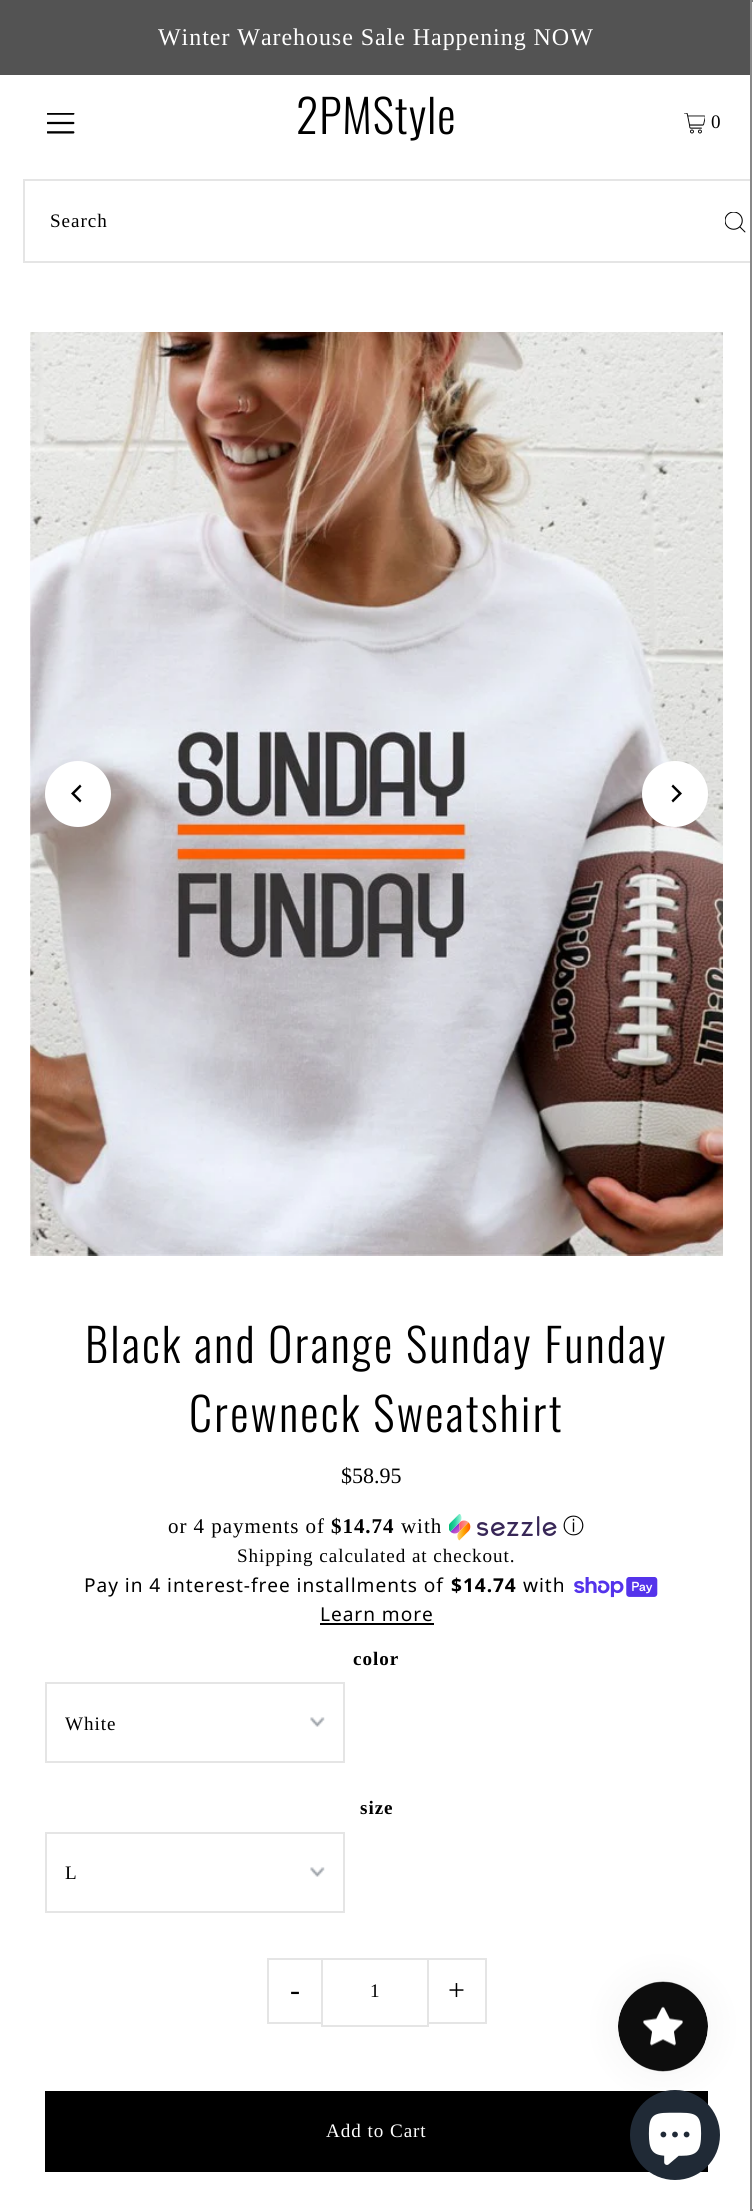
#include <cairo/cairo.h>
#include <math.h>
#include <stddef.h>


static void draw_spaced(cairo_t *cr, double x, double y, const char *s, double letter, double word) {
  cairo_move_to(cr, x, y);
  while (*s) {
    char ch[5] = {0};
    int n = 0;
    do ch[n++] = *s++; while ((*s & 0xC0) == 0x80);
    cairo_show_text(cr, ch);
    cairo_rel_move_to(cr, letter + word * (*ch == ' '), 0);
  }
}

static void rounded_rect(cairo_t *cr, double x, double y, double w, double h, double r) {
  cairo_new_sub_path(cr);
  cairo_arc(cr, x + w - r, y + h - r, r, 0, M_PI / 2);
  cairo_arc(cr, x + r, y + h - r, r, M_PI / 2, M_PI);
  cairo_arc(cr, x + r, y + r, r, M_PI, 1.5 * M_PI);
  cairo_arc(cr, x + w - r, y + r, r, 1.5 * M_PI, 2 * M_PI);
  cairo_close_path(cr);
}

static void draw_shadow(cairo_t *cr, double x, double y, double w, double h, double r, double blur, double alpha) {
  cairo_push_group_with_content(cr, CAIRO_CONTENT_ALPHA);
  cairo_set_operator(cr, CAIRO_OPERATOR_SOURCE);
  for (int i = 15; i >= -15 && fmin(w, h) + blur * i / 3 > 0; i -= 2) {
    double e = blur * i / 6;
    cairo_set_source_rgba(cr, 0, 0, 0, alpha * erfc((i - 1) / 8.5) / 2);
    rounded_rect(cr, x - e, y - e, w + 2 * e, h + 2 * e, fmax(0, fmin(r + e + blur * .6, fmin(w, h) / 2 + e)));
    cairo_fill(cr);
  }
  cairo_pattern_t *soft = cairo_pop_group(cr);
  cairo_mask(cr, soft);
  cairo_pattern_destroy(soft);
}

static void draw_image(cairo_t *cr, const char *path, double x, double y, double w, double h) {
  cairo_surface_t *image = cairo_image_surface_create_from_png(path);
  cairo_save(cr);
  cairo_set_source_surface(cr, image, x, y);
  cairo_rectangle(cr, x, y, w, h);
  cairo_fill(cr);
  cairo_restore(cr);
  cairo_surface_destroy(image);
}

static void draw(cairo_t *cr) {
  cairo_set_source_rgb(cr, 1, 1, 1);
  cairo_paint(cr);
  cairo_set_source_rgb(cr, 83 / 255.0, 83 / 255.0, 83 / 255.0);
  cairo_rectangle(cr, 0, 0, 750, 75);
  cairo_fill(cr);
  draw_image(cr, "images/1.png", 47, 113, 28, 21);
  draw_image(cr, "images/2.png", 684, 113, 21, 21);
  cairo_rectangle(cr, 24, 180, 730, 82);
  cairo_set_source_rgb(cr, 229 / 255.0, 229 / 255.0, 229 / 255.0);
  cairo_stroke(cr);
  draw_image(cr, "images/3.png", 725, 212, 21, 21);
  draw_image(cr, "images/4.png", 30, 332, 693, 924);
  cairo_set_source_rgb(cr, 1, 1, 1);
  cairo_arc(cr, 78, 794, 33, 0, 2 * M_PI);
  cairo_fill(cr);
  cairo_set_source_rgb(cr, 0, 0, 0);
  cairo_new_path(cr);
  cairo_move_to(cr, 71, 793.5);
  cairo_line_to(cr, 80, 802.5);
  cairo_line_to(cr, 81.5, 800.5);
  cairo_line_to(cr, 74.5, 793.5);
  cairo_line_to(cr, 81.5, 786.5);
  cairo_line_to(cr, 80, 784.5);
  cairo_close_path(cr);
  cairo_fill(cr);
  cairo_set_source_rgb(cr, 1, 1, 1);
  cairo_arc(cr, 675, 794, 33, 0, 2 * M_PI);
  cairo_fill(cr);
  cairo_set_source_rgb(cr, 0, 0, 0);
  cairo_new_path(cr);
  cairo_move_to(cr, 682, 793.5);
  cairo_line_to(cr, 673, 784.5);
  cairo_line_to(cr, 671.5, 786.5);
  cairo_line_to(cr, 678.5, 793.5);
  cairo_line_to(cr, 671.5, 800.5);
  cairo_line_to(cr, 673, 802.5);
  cairo_close_path(cr);
  cairo_fill(cr);
  draw_image(cr, "images/5.png", 449, 1514, 108, 27);
  draw_image(cr, "images/6.png", 574, 1577, 84, 21);
  cairo_rectangle(cr, 320, 1623, 114, 2);
  cairo_fill(cr);
  draw_image(cr, "images/7.png", 310, 1717, 15, 10);
  cairo_rectangle(cr, 46, 1683, 298, 79);
  cairo_set_source_rgb(cr, 229 / 255.0, 229 / 255.0, 229 / 255.0);
  cairo_stroke(cr);
  draw_image(cr, "images/7.png", 310, 1867, 15, 10);
  cairo_rectangle(cr, 46, 1833, 298, 79);
  cairo_stroke(cr);
  cairo_rectangle(cr, 267, 1958, 57, 2);
  cairo_fill(cr);
  cairo_rectangle(cr, 267, 2022, 57, 2);
  cairo_fill(cr);
  cairo_rectangle(cr, 267, 1958, 2, 66);
  cairo_fill(cr);
  cairo_set_source_rgb(cr, 1, 1, 1);
  cairo_rectangle(cr, 323, 2022, 1, 2);
  cairo_fill(cr);
  cairo_rectangle(cr, 322, 1959, 106, 67);
  cairo_set_source_rgb(cr, 229 / 255.0, 229 / 255.0, 229 / 255.0);
  cairo_stroke(cr);
  cairo_rectangle(cr, 429, 1958, 57, 2);
  cairo_fill(cr);
  cairo_rectangle(cr, 485, 1958, 2, 66);
  cairo_fill(cr);
  cairo_rectangle(cr, 429, 2022, 57, 2);
  cairo_fill(cr);
  cairo_set_source_rgb(cr, 0, 0, 0);
  cairo_rectangle(cr, 45, 2091, 663, 81);
  cairo_fill(cr);
  cairo_set_source_rgb(cr, 1, 1, 1);
  cairo_rectangle(cr, 752, 179, 1, 84);
  cairo_fill(cr);
  cairo_rectangle(cr, 751, 1, 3, 2209);
  cairo_set_source_rgb(cr, 136 / 255.0, 136 / 255.0, 136 / 255.0);
  cairo_stroke(cr);
  cairo_set_source_rgb(cr, 32 / 255.0, 42 / 255.0, 54 / 255.0);
  cairo_arc(cr, 675, 2135, 45, 0, 2 * M_PI);
  cairo_fill(cr);
  draw_image(cr, "images/9.png", 648, 2112, 54, 53);
  cairo_set_source_rgb(cr, 0, 0, 0);
  draw_shadow(cr, 618, 1982, 90, 90, 45, 19, 0.05);
  draw_image(cr, "images/8.png", 618, 1981, 90, 91);
  cairo_select_font_face(cr, "Liberation Serif", CAIRO_FONT_SLANT_NORMAL, CAIRO_FONT_WEIGHT_NORMAL);
  cairo_set_font_size(cr, 24);
  cairo_set_source_rgb(cr, 1, 1, 1);
  draw_spaced(cr, 158, 45, "Winter Warehouse Sale Happening NOW", 0.95, 0);
  cairo_select_font_face(cr, "Oswald Light", CAIRO_FONT_SLANT_NORMAL, CAIRO_FONT_WEIGHT_NORMAL);
  cairo_set_font_size(cr, 45.9);
  cairo_set_source_rgb(cr, 0, 0, 0);
  draw_spaced(cr, 296, 134, "2PMStyle", 0.95, 0);
  cairo_select_font_face(cr, "Liberation Serif", CAIRO_FONT_SLANT_NORMAL, CAIRO_FONT_WEIGHT_NORMAL);
  cairo_set_font_size(cr, 19.1);
  draw_spaced(cr, 711, 128, "0", 0.95, 0);
  draw_spaced(cr, 50, 227, "Search", 0.95, 0);
  cairo_select_font_face(cr, "Oswald Light", CAIRO_FONT_SLANT_NORMAL, CAIRO_FONT_WEIGHT_NORMAL);
  cairo_set_font_size(cr, 45.9);
  draw_spaced(cr, 85, 1363, "Black and Orange Sunday Funday", 2.3, 0);
  draw_spaced(cr, 189, 1432, "Crewneck Sweatshirt", 2.3, 0);
  cairo_select_font_face(cr, "Liberation Serif", CAIRO_FONT_SLANT_NORMAL, CAIRO_FONT_WEIGHT_NORMAL);
  cairo_set_font_size(cr, 22);
  cairo_move_to(cr, 341, 1483);
  cairo_show_text(cr, "$58.95");
  cairo_set_font_size(cr, 21);
  draw_spaced(cr, 168, 1533, "or 4 payments of", 0.95, 0);
  cairo_select_font_face(cr, "Liberation Serif", CAIRO_FONT_SLANT_NORMAL, CAIRO_FONT_WEIGHT_BOLD);
  draw_spaced(cr, 331, 1533, "$14.74", 0.95, 0);
  cairo_select_font_face(cr, "Liberation Serif", CAIRO_FONT_SLANT_NORMAL, CAIRO_FONT_WEIGHT_NORMAL);
  draw_spaced(cr, 401, 1533, "with", 0.95, 0);
  cairo_select_font_face(cr, "WenQuanYi Zen Hei Medium", CAIRO_FONT_SLANT_NORMAL, CAIRO_FONT_WEIGHT_NORMAL);
  draw_spaced(cr, 563, 1533, "ⓘ", 0.95, 0);
  cairo_select_font_face(cr, "Liberation Serif", CAIRO_FONT_SLANT_NORMAL, CAIRO_FONT_WEIGHT_NORMAL);
  cairo_set_font_size(cr, 19.1);
  draw_spaced(cr, 237, 1562, "Shipping calculated at checkout.", 0.95, 0);
  cairo_select_font_face(cr, "Noto Sans", CAIRO_FONT_SLANT_NORMAL, CAIRO_FONT_WEIGHT_NORMAL);
  draw_spaced(cr, 84, 1592, "Pay in 4 interest-free installments of", 0.95, 0);
  cairo_select_font_face(cr, "Noto Sans", CAIRO_FONT_SLANT_NORMAL, CAIRO_FONT_WEIGHT_BOLD);
  draw_spaced(cr, 451, 1592, "$14.74", 0.95, 0);
  cairo_select_font_face(cr, "Noto Sans", CAIRO_FONT_SLANT_NORMAL, CAIRO_FONT_WEIGHT_NORMAL);
  draw_spaced(cr, 523, 1592, "with", 0.95, 0);
  draw_spaced(cr, 320, 1621, "Learn more", 0.95, 0);
  cairo_select_font_face(cr, "Liberation Serif", CAIRO_FONT_SLANT_NORMAL, CAIRO_FONT_WEIGHT_BOLD);
  draw_spaced(cr, 353, 1665, "color", 0.95, 0);
  cairo_select_font_face(cr, "Liberation Serif", CAIRO_FONT_SLANT_NORMAL, CAIRO_FONT_WEIGHT_NORMAL);
  draw_spaced(cr, 65, 1730, "White", 0.95, 0);
  cairo_select_font_face(cr, "Liberation Serif", CAIRO_FONT_SLANT_NORMAL, CAIRO_FONT_WEIGHT_BOLD);
  draw_spaced(cr, 360, 1814, "size", 0.95, 0);
  cairo_select_font_face(cr, "Liberation Serif", CAIRO_FONT_SLANT_NORMAL, CAIRO_FONT_WEIGHT_NORMAL);
  draw_spaced(cr, 65, 1879, "L", 0.95, 0);
  cairo_set_font_size(cr, 30);
  draw_spaced(cr, 290, 2000, "-", 2, 0);
  cairo_set_font_size(cr, 19.1);
  draw_spaced(cr, 370, 1997, "1", 0.95, 0);
  cairo_set_font_size(cr, 30);
  draw_spaced(cr, 448, 2000, "+", 2, 0);
  cairo_set_font_size(cr, 19.1);
  cairo_set_source_rgb(cr, 1, 1, 1);
  draw_spaced(cr, 326, 2137, "Add to Cart", 0.95, 0);
}

int main(void) {
  cairo_surface_t *surface = cairo_image_surface_create(CAIRO_FORMAT_RGB24, 753, 2211);
  cairo_t *cr = cairo_create(surface);
  cairo_font_options_t *options = cairo_font_options_create();
  cairo_font_options_set_hint_metrics(options, CAIRO_HINT_METRICS_OFF);
  cairo_font_options_set_hint_style(options, CAIRO_HINT_STYLE_NONE);
  cairo_set_font_options(cr, options);
  cairo_set_miter_limit(cr, 4);
  draw(cr);
  cairo_surface_write_to_png(surface, "out.png");
  cairo_font_options_destroy(options);
  cairo_destroy(cr);
  cairo_surface_destroy(surface);
  return 0;
}
